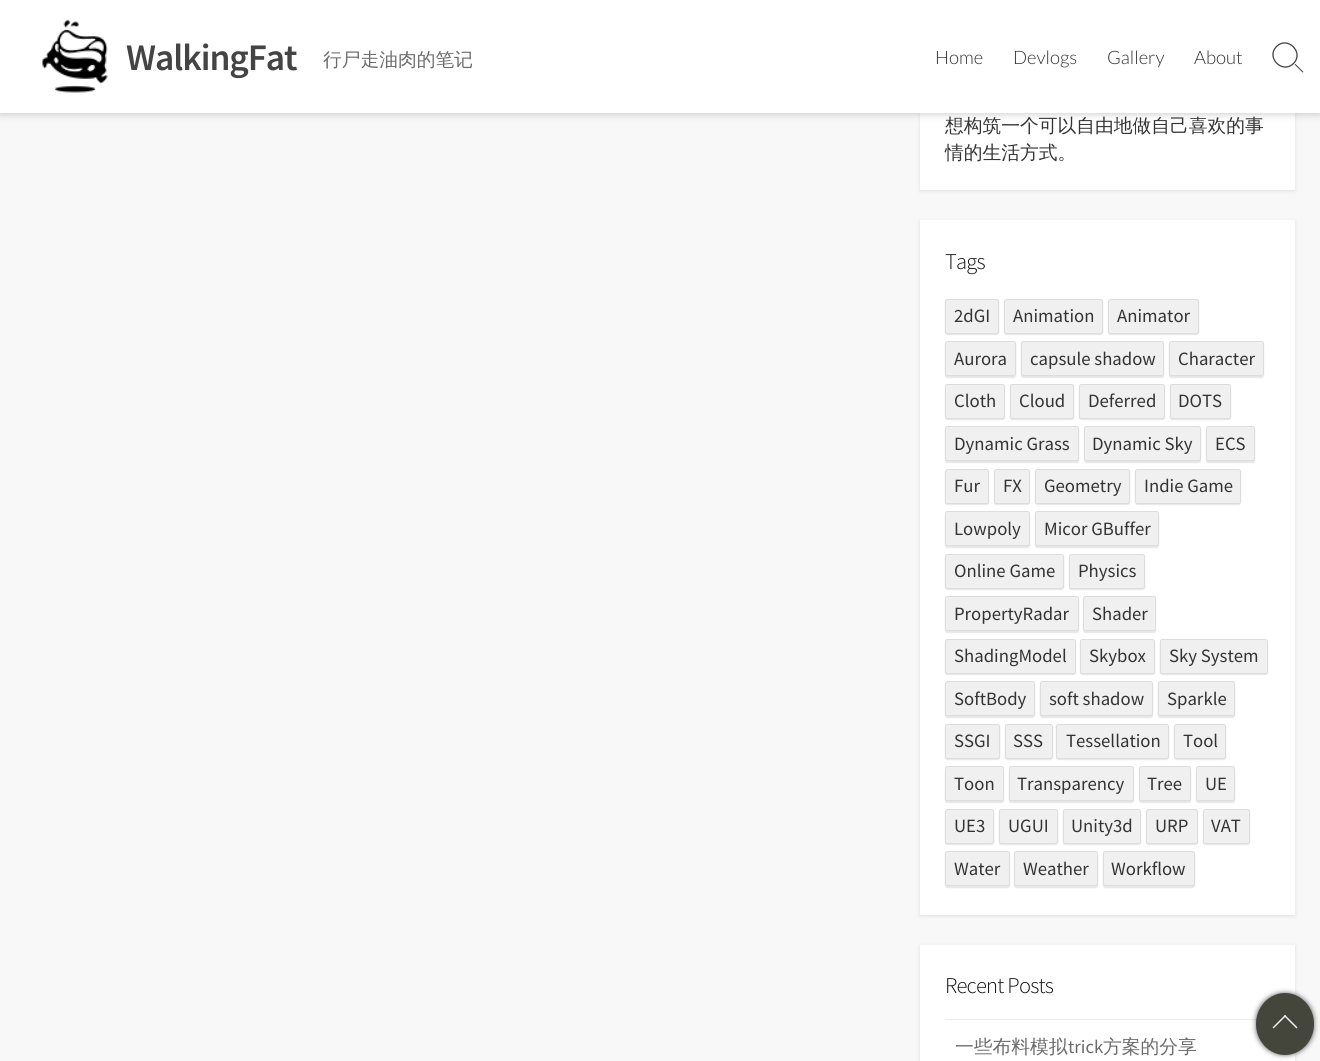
#include <cairo/cairo.h>
#include <math.h>
#include <stddef.h>


static void draw_spaced(cairo_t *cr, double x, double y, const char *s, double letter, double word) {
  cairo_move_to(cr, x, y);
  while (*s) {
    char ch[5] = {0};
    int n = 0;
    do ch[n++] = *s++; while ((*s & 0xC0) == 0x80);
    cairo_show_text(cr, ch);
    cairo_rel_move_to(cr, letter + word * (*ch == ' '), 0);
  }
}

static void rounded_rect(cairo_t *cr, double x, double y, double w, double h, double r) {
  cairo_new_sub_path(cr);
  cairo_arc(cr, x + w - r, y + h - r, r, 0, M_PI / 2);
  cairo_arc(cr, x + r, y + h - r, r, M_PI / 2, M_PI);
  cairo_arc(cr, x + r, y + r, r, M_PI, 1.5 * M_PI);
  cairo_arc(cr, x + w - r, y + r, r, 1.5 * M_PI, 2 * M_PI);
  cairo_close_path(cr);
}

static void draw_shadow(cairo_t *cr, double x, double y, double w, double h, double r, double blur, double alpha) {
  cairo_push_group_with_content(cr, CAIRO_CONTENT_ALPHA);
  cairo_set_operator(cr, CAIRO_OPERATOR_SOURCE);
  for (int i = 15; i >= -15 && fmin(w, h) + blur * i / 3 > 0; i -= 2) {
    double e = blur * i / 6;
    cairo_set_source_rgba(cr, 0, 0, 0, alpha * erfc((i - 1) / 8.5) / 2);
    rounded_rect(cr, x - e, y - e, w + 2 * e, h + 2 * e, fmax(0, fmin(r + e + blur * .6, fmin(w, h) / 2 + e)));
    cairo_fill(cr);
  }
  cairo_pattern_t *soft = cairo_pop_group(cr);
  cairo_mask(cr, soft);
  cairo_pattern_destroy(soft);
}

static void draw_image(cairo_t *cr, const char *path, double x, double y, double w, double h) {
  cairo_surface_t *image = cairo_image_surface_create_from_png(path);
  cairo_save(cr);
  cairo_set_source_surface(cr, image, x, y);
  cairo_rectangle(cr, x, y, w, h);
  cairo_fill(cr);
  cairo_restore(cr);
  cairo_surface_destroy(image);
}

static void draw(cairo_t *cr) {
  cairo_set_source_rgb(cr, 248 / 255.0, 248 / 255.0, 248 / 255.0);
  cairo_paint(cr);
  cairo_set_source_rgb(cr, 0, 0, 0);
  draw_shadow(cr, 920, 39, 375, 152, 0, 2, 0.1);
  cairo_set_source_rgb(cr, 1, 1, 1);
  cairo_rectangle(cr, 920, 113, 375, 77);
  cairo_fill(cr);
  cairo_set_source_rgb(cr, 0, 0, 0);
  draw_shadow(cr, 0, 1, 1320, 113, 0, 4, 0.2);
  cairo_set_source_rgb(cr, 1, 1, 1);
  cairo_rectangle(cr, 0, 0, 1320, 113);
  cairo_fill(cr);
  draw_image(cr, "images/1.png", 41, 19, 67, 74);
  cairo_new_path(cr);
  cairo_move_to(cr, 1276.5, 46.5);
  cairo_curve_to(cr, 1287.5, 35.5, 1304.5, 52.5, 1293.5, 63.5);
  cairo_curve_to(cr, 1282.5, 74.5, 1265.5, 57.5, 1276.5, 46.5);
  cairo_close_path(cr);
  cairo_set_source_rgb(cr, 68 / 255.0, 68 / 255.0, 68 / 255.0);
  cairo_set_line_width(cr, 1.3);
  cairo_stroke(cr);
  cairo_new_path(cr);
  cairo_move_to(cr, 1294.5, 64.5);
  cairo_line_to(cr, 1295.5, 64);
  cairo_line_to(cr, 1303.5, 72);
  cairo_line_to(cr, 1302.5, 72.5);
  cairo_close_path(cr);
  cairo_fill(cr);
  cairo_set_source_rgb(cr, 0, 0, 0);
  draw_shadow(cr, 920, 221, 375, 695, 0, 2, 0.1);
  cairo_set_source_rgb(cr, 1, 1, 1);
  cairo_rectangle(cr, 920, 220, 375, 695);
  cairo_fill(cr);
  cairo_set_source_rgb(cr, 0, 0, 0);
  draw_shadow(cr, 945, 300, 54, 35, 2.5, 0.5, 0.1);
  cairo_set_source_rgb(cr, 240 / 255.0, 240 / 255.0, 240 / 255.0);
  rounded_rect(cr, 945.5, 299.5, 53, 34, 2);
  cairo_fill_preserve(cr);
  cairo_set_source_rgb(cr, 221 / 255.0, 221 / 255.0, 221 / 255.0);
  cairo_set_line_width(cr, 1);
  cairo_stroke(cr);
  cairo_set_source_rgb(cr, 0, 0, 0);
  draw_shadow(cr, 1004, 300, 99, 35, 2.5, 0.5, 0.1);
  cairo_set_source_rgb(cr, 240 / 255.0, 240 / 255.0, 240 / 255.0);
  rounded_rect(cr, 1004.5, 299.5, 98, 34, 2);
  cairo_fill_preserve(cr);
  cairo_set_source_rgb(cr, 221 / 255.0, 221 / 255.0, 221 / 255.0);
  cairo_stroke(cr);
  cairo_set_source_rgb(cr, 0, 0, 0);
  draw_shadow(cr, 1108, 300, 91, 35, 2.5, 0.5, 0.1);
  cairo_set_source_rgb(cr, 240 / 255.0, 240 / 255.0, 240 / 255.0);
  rounded_rect(cr, 1108.5, 299.5, 90, 34, 2);
  cairo_fill_preserve(cr);
  cairo_set_source_rgb(cr, 221 / 255.0, 221 / 255.0, 221 / 255.0);
  cairo_stroke(cr);
  cairo_set_source_rgb(cr, 0, 0, 0);
  draw_shadow(cr, 945, 343, 71, 35, 2.5, 0.5, 0.1);
  cairo_set_source_rgb(cr, 240 / 255.0, 240 / 255.0, 240 / 255.0);
  rounded_rect(cr, 945.5, 341.5, 70, 34, 2);
  cairo_fill_preserve(cr);
  cairo_set_source_rgb(cr, 221 / 255.0, 221 / 255.0, 221 / 255.0);
  cairo_stroke(cr);
  cairo_set_source_rgb(cr, 0, 0, 0);
  draw_shadow(cr, 1021, 343, 143, 35, 2.5, 0.5, 0.1);
  cairo_set_source_rgb(cr, 240 / 255.0, 240 / 255.0, 240 / 255.0);
  rounded_rect(cr, 1021.5, 341.5, 142, 34, 2);
  cairo_fill_preserve(cr);
  cairo_set_source_rgb(cr, 221 / 255.0, 221 / 255.0, 221 / 255.0);
  cairo_stroke(cr);
  cairo_set_source_rgb(cr, 0, 0, 0);
  draw_shadow(cr, 1169, 343, 95, 35, 2.5, 0.5, 0.1);
  cairo_set_source_rgb(cr, 240 / 255.0, 240 / 255.0, 240 / 255.0);
  rounded_rect(cr, 1169.5, 341.5, 94, 34, 2);
  cairo_fill_preserve(cr);
  cairo_set_source_rgb(cr, 221 / 255.0, 221 / 255.0, 221 / 255.0);
  cairo_stroke(cr);
  cairo_set_source_rgb(cr, 0, 0, 0);
  draw_shadow(cr, 945, 385, 60, 35, 2.5, 0.5, 0.1);
  cairo_set_source_rgb(cr, 240 / 255.0, 240 / 255.0, 240 / 255.0);
  rounded_rect(cr, 945.5, 384.5, 59, 34, 2);
  cairo_fill_preserve(cr);
  cairo_set_source_rgb(cr, 221 / 255.0, 221 / 255.0, 221 / 255.0);
  cairo_stroke(cr);
  cairo_set_source_rgb(cr, 0, 0, 0);
  draw_shadow(cr, 1010, 385, 64, 35, 2.5, 0.5, 0.1);
  cairo_set_source_rgb(cr, 240 / 255.0, 240 / 255.0, 240 / 255.0);
  rounded_rect(cr, 1010.5, 384.5, 63, 34, 2);
  cairo_fill_preserve(cr);
  cairo_set_source_rgb(cr, 221 / 255.0, 221 / 255.0, 221 / 255.0);
  cairo_stroke(cr);
  cairo_set_source_rgb(cr, 0, 0, 0);
  draw_shadow(cr, 1079, 385, 86, 35, 2.5, 0.5, 0.1);
  cairo_set_source_rgb(cr, 240 / 255.0, 240 / 255.0, 240 / 255.0);
  rounded_rect(cr, 1079.5, 384.5, 85, 34, 2);
  cairo_fill_preserve(cr);
  cairo_set_source_rgb(cr, 221 / 255.0, 221 / 255.0, 221 / 255.0);
  cairo_stroke(cr);
  cairo_set_source_rgb(cr, 0, 0, 0);
  draw_shadow(cr, 1170, 385, 61, 35, 2.5, 0.5, 0.1);
  cairo_set_source_rgb(cr, 240 / 255.0, 240 / 255.0, 240 / 255.0);
  rounded_rect(cr, 1170.5, 384.5, 60, 34, 2);
  cairo_fill_preserve(cr);
  cairo_set_source_rgb(cr, 221 / 255.0, 221 / 255.0, 221 / 255.0);
  cairo_stroke(cr);
  cairo_set_source_rgb(cr, 0, 0, 0);
  draw_shadow(cr, 945, 428, 134, 35, 2.5, 0.5, 0.1);
  cairo_set_source_rgb(cr, 240 / 255.0, 240 / 255.0, 240 / 255.0);
  rounded_rect(cr, 945.5, 426.5, 133, 34, 2);
  cairo_fill_preserve(cr);
  cairo_set_source_rgb(cr, 221 / 255.0, 221 / 255.0, 221 / 255.0);
  cairo_stroke(cr);
  cairo_set_source_rgb(cr, 0, 0, 0);
  draw_shadow(cr, 1084, 428, 117, 35, 2.5, 0.5, 0.1);
  cairo_set_source_rgb(cr, 240 / 255.0, 240 / 255.0, 240 / 255.0);
  rounded_rect(cr, 1084.5, 426.5, 116, 34, 2);
  cairo_fill_preserve(cr);
  cairo_set_source_rgb(cr, 221 / 255.0, 221 / 255.0, 221 / 255.0);
  cairo_stroke(cr);
  cairo_set_source_rgb(cr, 0, 0, 0);
  draw_shadow(cr, 1206, 428, 49, 35, 2.5, 0.5, 0.1);
  cairo_set_source_rgb(cr, 240 / 255.0, 240 / 255.0, 240 / 255.0);
  rounded_rect(cr, 1206.5, 426.5, 48, 34, 2);
  cairo_fill_preserve(cr);
  cairo_set_source_rgb(cr, 221 / 255.0, 221 / 255.0, 221 / 255.0);
  cairo_stroke(cr);
  cairo_set_source_rgb(cr, 0, 0, 0);
  draw_shadow(cr, 945, 470, 44, 35, 2.5, 0.5, 0.1);
  cairo_set_source_rgb(cr, 240 / 255.0, 240 / 255.0, 240 / 255.0);
  rounded_rect(cr, 945.5, 469.5, 43, 34, 2);
  cairo_fill_preserve(cr);
  cairo_set_source_rgb(cr, 221 / 255.0, 221 / 255.0, 221 / 255.0);
  cairo_stroke(cr);
  cairo_set_source_rgb(cr, 0, 0, 0);
  draw_shadow(cr, 994, 470, 36, 35, 2.5, 0.5, 0.1);
  cairo_set_source_rgb(cr, 240 / 255.0, 240 / 255.0, 240 / 255.0);
  rounded_rect(cr, 994.5, 469.5, 35, 34, 2);
  cairo_fill_preserve(cr);
  cairo_set_source_rgb(cr, 221 / 255.0, 221 / 255.0, 221 / 255.0);
  cairo_stroke(cr);
  cairo_set_source_rgb(cr, 0, 0, 0);
  draw_shadow(cr, 1035, 470, 95, 35, 2.5, 0.5, 0.1);
  cairo_set_source_rgb(cr, 240 / 255.0, 240 / 255.0, 240 / 255.0);
  rounded_rect(cr, 1035.5, 469.5, 94, 34, 2);
  cairo_fill_preserve(cr);
  cairo_set_source_rgb(cr, 221 / 255.0, 221 / 255.0, 221 / 255.0);
  cairo_stroke(cr);
  cairo_set_source_rgb(cr, 0, 0, 0);
  draw_shadow(cr, 1135, 470, 106, 35, 2.5, 0.5, 0.1);
  cairo_set_source_rgb(cr, 240 / 255.0, 240 / 255.0, 240 / 255.0);
  rounded_rect(cr, 1135.5, 469.5, 105, 34, 2);
  cairo_fill_preserve(cr);
  cairo_set_source_rgb(cr, 221 / 255.0, 221 / 255.0, 221 / 255.0);
  cairo_stroke(cr);
  cairo_set_source_rgb(cr, 0, 0, 0);
  draw_shadow(cr, 945, 513, 85, 35, 2.5, 0.5, 0.1);
  cairo_set_source_rgb(cr, 240 / 255.0, 240 / 255.0, 240 / 255.0);
  rounded_rect(cr, 945.5, 511.5, 84, 34, 2);
  cairo_fill_preserve(cr);
  cairo_set_source_rgb(cr, 221 / 255.0, 221 / 255.0, 221 / 255.0);
  cairo_stroke(cr);
  cairo_set_source_rgb(cr, 0, 0, 0);
  draw_shadow(cr, 1035, 513, 124, 35, 2.5, 0.5, 0.1);
  cairo_set_source_rgb(cr, 240 / 255.0, 240 / 255.0, 240 / 255.0);
  rounded_rect(cr, 1035.5, 511.5, 123, 34, 2);
  cairo_fill_preserve(cr);
  cairo_set_source_rgb(cr, 221 / 255.0, 221 / 255.0, 221 / 255.0);
  cairo_stroke(cr);
  cairo_set_source_rgb(cr, 0, 0, 0);
  draw_shadow(cr, 945, 555, 119, 35, 2.5, 0.5, 0.1);
  cairo_set_source_rgb(cr, 240 / 255.0, 240 / 255.0, 240 / 255.0);
  rounded_rect(cr, 945.5, 554.5, 118, 34, 2);
  cairo_fill_preserve(cr);
  cairo_set_source_rgb(cr, 221 / 255.0, 221 / 255.0, 221 / 255.0);
  cairo_stroke(cr);
  cairo_set_source_rgb(cr, 0, 0, 0);
  draw_shadow(cr, 1069, 555, 76, 35, 2.5, 0.5, 0.1);
  cairo_set_source_rgb(cr, 240 / 255.0, 240 / 255.0, 240 / 255.0);
  rounded_rect(cr, 1069.5, 554.5, 75, 34, 2);
  cairo_fill_preserve(cr);
  cairo_set_source_rgb(cr, 221 / 255.0, 221 / 255.0, 221 / 255.0);
  cairo_stroke(cr);
  cairo_set_source_rgb(cr, 0, 0, 0);
  draw_shadow(cr, 945, 598, 134, 35, 2.5, 0.5, 0.1);
  cairo_set_source_rgb(cr, 240 / 255.0, 240 / 255.0, 240 / 255.0);
  rounded_rect(cr, 945.5, 596.5, 133, 34, 2);
  cairo_fill_preserve(cr);
  cairo_set_source_rgb(cr, 221 / 255.0, 221 / 255.0, 221 / 255.0);
  cairo_stroke(cr);
  cairo_set_source_rgb(cr, 0, 0, 0);
  draw_shadow(cr, 1083, 598, 73, 35, 2.5, 0.5, 0.1);
  cairo_set_source_rgb(cr, 240 / 255.0, 240 / 255.0, 240 / 255.0);
  rounded_rect(cr, 1083.5, 596.5, 72, 34, 2);
  cairo_fill_preserve(cr);
  cairo_set_source_rgb(cr, 221 / 255.0, 221 / 255.0, 221 / 255.0);
  cairo_stroke(cr);
  cairo_set_source_rgb(cr, 0, 0, 0);
  draw_shadow(cr, 945, 640, 131, 35, 2.5, 0.5, 0.1);
  cairo_set_source_rgb(cr, 240 / 255.0, 240 / 255.0, 240 / 255.0);
  rounded_rect(cr, 945.5, 639.5, 130, 34, 2);
  cairo_fill_preserve(cr);
  cairo_set_source_rgb(cr, 221 / 255.0, 221 / 255.0, 221 / 255.0);
  cairo_stroke(cr);
  cairo_set_source_rgb(cr, 0, 0, 0);
  draw_shadow(cr, 1080, 640, 75, 35, 2.5, 0.5, 0.1);
  cairo_set_source_rgb(cr, 240 / 255.0, 240 / 255.0, 240 / 255.0);
  rounded_rect(cr, 1080.5, 639.5, 74, 34, 2);
  cairo_fill_preserve(cr);
  cairo_set_source_rgb(cr, 221 / 255.0, 221 / 255.0, 221 / 255.0);
  cairo_stroke(cr);
  cairo_set_source_rgb(cr, 0, 0, 0);
  draw_shadow(cr, 1160, 640, 108, 35, 2.5, 0.5, 0.1);
  cairo_set_source_rgb(cr, 240 / 255.0, 240 / 255.0, 240 / 255.0);
  rounded_rect(cr, 1160.5, 639.5, 107, 34, 2);
  cairo_fill_preserve(cr);
  cairo_set_source_rgb(cr, 221 / 255.0, 221 / 255.0, 221 / 255.0);
  cairo_stroke(cr);
  cairo_set_source_rgb(cr, 0, 0, 0);
  draw_shadow(cr, 945, 683, 90, 35, 2.5, 0.5, 0.1);
  cairo_set_source_rgb(cr, 240 / 255.0, 240 / 255.0, 240 / 255.0);
  rounded_rect(cr, 945.5, 681.5, 89, 34, 2);
  cairo_fill_preserve(cr);
  cairo_set_source_rgb(cr, 221 / 255.0, 221 / 255.0, 221 / 255.0);
  cairo_stroke(cr);
  cairo_set_source_rgb(cr, 0, 0, 0);
  draw_shadow(cr, 1040, 683, 113, 35, 2.5, 0.5, 0.1);
  cairo_set_source_rgb(cr, 240 / 255.0, 240 / 255.0, 240 / 255.0);
  rounded_rect(cr, 1040.5, 681.5, 112, 34, 2);
  cairo_fill_preserve(cr);
  cairo_set_source_rgb(cr, 221 / 255.0, 221 / 255.0, 221 / 255.0);
  cairo_stroke(cr);
  cairo_set_source_rgb(cr, 0, 0, 0);
  draw_shadow(cr, 1158, 683, 77, 35, 2.5, 0.5, 0.1);
  cairo_set_source_rgb(cr, 240 / 255.0, 240 / 255.0, 240 / 255.0);
  rounded_rect(cr, 1158.5, 681.5, 76, 34, 2);
  cairo_fill_preserve(cr);
  cairo_set_source_rgb(cr, 221 / 255.0, 221 / 255.0, 221 / 255.0);
  cairo_stroke(cr);
  cairo_set_source_rgb(cr, 0, 0, 0);
  draw_shadow(cr, 945, 725, 55, 35, 2.5, 0.5, 0.1);
  cairo_set_source_rgb(cr, 240 / 255.0, 240 / 255.0, 240 / 255.0);
  rounded_rect(cr, 945.5, 724.5, 54, 34, 2);
  cairo_fill_preserve(cr);
  cairo_set_source_rgb(cr, 221 / 255.0, 221 / 255.0, 221 / 255.0);
  cairo_stroke(cr);
  cairo_set_source_rgb(cr, 0, 0, 0);
  draw_shadow(cr, 1005, 725, 48, 35, 2.5, 0.5, 0.1);
  cairo_set_source_rgb(cr, 240 / 255.0, 240 / 255.0, 240 / 255.0);
  rounded_rect(cr, 1005.5, 724.5, 47, 34, 2);
  cairo_fill_preserve(cr);
  cairo_set_source_rgb(cr, 221 / 255.0, 221 / 255.0, 221 / 255.0);
  cairo_stroke(cr);
  cairo_set_source_rgb(cr, 0, 0, 0);
  draw_shadow(cr, 1056, 725, 113, 35, 2.5, 0.5, 0.1);
  cairo_set_source_rgb(cr, 240 / 255.0, 240 / 255.0, 240 / 255.0);
  rounded_rect(cr, 1056.5, 724.5, 112, 34, 2);
  cairo_fill_preserve(cr);
  cairo_set_source_rgb(cr, 221 / 255.0, 221 / 255.0, 221 / 255.0);
  cairo_stroke(cr);
  cairo_set_source_rgb(cr, 0, 0, 0);
  draw_shadow(cr, 1174, 725, 52, 35, 2.5, 0.5, 0.1);
  cairo_set_source_rgb(cr, 240 / 255.0, 240 / 255.0, 240 / 255.0);
  rounded_rect(cr, 1174.5, 724.5, 51, 34, 2);
  cairo_fill_preserve(cr);
  cairo_set_source_rgb(cr, 221 / 255.0, 221 / 255.0, 221 / 255.0);
  cairo_stroke(cr);
  cairo_set_source_rgb(cr, 0, 0, 0);
  draw_shadow(cr, 945, 768, 59, 35, 2.5, 0.5, 0.1);
  cairo_set_source_rgb(cr, 240 / 255.0, 240 / 255.0, 240 / 255.0);
  rounded_rect(cr, 945.5, 766.5, 58, 34, 2);
  cairo_fill_preserve(cr);
  cairo_set_source_rgb(cr, 221 / 255.0, 221 / 255.0, 221 / 255.0);
  cairo_stroke(cr);
  cairo_set_source_rgb(cr, 0, 0, 0);
  draw_shadow(cr, 1009, 768, 125, 35, 2.5, 0.5, 0.1);
  cairo_set_source_rgb(cr, 240 / 255.0, 240 / 255.0, 240 / 255.0);
  rounded_rect(cr, 1009.5, 766.5, 124, 34, 2);
  cairo_fill_preserve(cr);
  cairo_set_source_rgb(cr, 221 / 255.0, 221 / 255.0, 221 / 255.0);
  cairo_stroke(cr);
  cairo_set_source_rgb(cr, 0, 0, 0);
  draw_shadow(cr, 1139, 768, 52, 35, 2.5, 0.5, 0.1);
  cairo_set_source_rgb(cr, 240 / 255.0, 240 / 255.0, 240 / 255.0);
  rounded_rect(cr, 1139.5, 766.5, 51, 34, 2);
  cairo_fill_preserve(cr);
  cairo_set_source_rgb(cr, 221 / 255.0, 221 / 255.0, 221 / 255.0);
  cairo_stroke(cr);
  cairo_set_source_rgb(cr, 0, 0, 0);
  draw_shadow(cr, 1196, 768, 39, 35, 2.5, 0.5, 0.1);
  cairo_set_source_rgb(cr, 240 / 255.0, 240 / 255.0, 240 / 255.0);
  rounded_rect(cr, 1196.5, 766.5, 38, 34, 2);
  cairo_fill_preserve(cr);
  cairo_set_source_rgb(cr, 221 / 255.0, 221 / 255.0, 221 / 255.0);
  cairo_stroke(cr);
  cairo_set_source_rgb(cr, 0, 0, 0);
  draw_shadow(cr, 945, 810, 49, 35, 2.5, 0.5, 0.1);
  cairo_set_source_rgb(cr, 240 / 255.0, 240 / 255.0, 240 / 255.0);
  rounded_rect(cr, 945.5, 809.5, 48, 34, 2);
  cairo_fill_preserve(cr);
  cairo_set_source_rgb(cr, 221 / 255.0, 221 / 255.0, 221 / 255.0);
  cairo_stroke(cr);
  cairo_set_source_rgb(cr, 0, 0, 0);
  draw_shadow(cr, 999, 810, 59, 35, 2.5, 0.5, 0.1);
  cairo_set_source_rgb(cr, 240 / 255.0, 240 / 255.0, 240 / 255.0);
  rounded_rect(cr, 999.5, 809.5, 58, 34, 2);
  cairo_fill_preserve(cr);
  cairo_set_source_rgb(cr, 221 / 255.0, 221 / 255.0, 221 / 255.0);
  cairo_stroke(cr);
  cairo_set_source_rgb(cr, 0, 0, 0);
  draw_shadow(cr, 1063, 810, 78, 35, 2.5, 0.5, 0.1);
  cairo_set_source_rgb(cr, 240 / 255.0, 240 / 255.0, 240 / 255.0);
  rounded_rect(cr, 1063.5, 809.5, 77, 34, 2);
  cairo_fill_preserve(cr);
  cairo_set_source_rgb(cr, 221 / 255.0, 221 / 255.0, 221 / 255.0);
  cairo_stroke(cr);
  cairo_set_source_rgb(cr, 0, 0, 0);
  draw_shadow(cr, 1146, 810, 52, 35, 2.5, 0.5, 0.1);
  cairo_set_source_rgb(cr, 240 / 255.0, 240 / 255.0, 240 / 255.0);
  rounded_rect(cr, 1146.5, 809.5, 51, 34, 2);
  cairo_fill_preserve(cr);
  cairo_set_source_rgb(cr, 221 / 255.0, 221 / 255.0, 221 / 255.0);
  cairo_stroke(cr);
  cairo_set_source_rgb(cr, 0, 0, 0);
  draw_shadow(cr, 1203, 810, 47, 35, 2.5, 0.5, 0.1);
  cairo_set_source_rgb(cr, 240 / 255.0, 240 / 255.0, 240 / 255.0);
  rounded_rect(cr, 1203.5, 809.5, 46, 34, 2);
  cairo_fill_preserve(cr);
  cairo_set_source_rgb(cr, 221 / 255.0, 221 / 255.0, 221 / 255.0);
  cairo_stroke(cr);
  cairo_set_source_rgb(cr, 0, 0, 0);
  draw_shadow(cr, 945, 853, 65, 35, 2.5, 0.5, 0.1);
  cairo_set_source_rgb(cr, 240 / 255.0, 240 / 255.0, 240 / 255.0);
  rounded_rect(cr, 945.5, 851.5, 64, 34, 2);
  cairo_fill_preserve(cr);
  cairo_set_source_rgb(cr, 221 / 255.0, 221 / 255.0, 221 / 255.0);
  cairo_stroke(cr);
  cairo_set_source_rgb(cr, 0, 0, 0);
  draw_shadow(cr, 1014, 853, 84, 35, 2.5, 0.5, 0.1);
  cairo_set_source_rgb(cr, 240 / 255.0, 240 / 255.0, 240 / 255.0);
  rounded_rect(cr, 1014.5, 851.5, 83, 34, 2);
  cairo_fill_preserve(cr);
  cairo_set_source_rgb(cr, 221 / 255.0, 221 / 255.0, 221 / 255.0);
  cairo_stroke(cr);
  cairo_set_source_rgb(cr, 0, 0, 0);
  draw_shadow(cr, 1103, 853, 92, 35, 2.5, 0.5, 0.1);
  cairo_set_source_rgb(cr, 240 / 255.0, 240 / 255.0, 240 / 255.0);
  rounded_rect(cr, 1103.5, 851.5, 91, 34, 2);
  cairo_fill_preserve(cr);
  cairo_set_source_rgb(cr, 221 / 255.0, 221 / 255.0, 221 / 255.0);
  cairo_stroke(cr);
  cairo_set_source_rgb(cr, 0, 0, 0);
  draw_shadow(cr, 920, 946, 375, 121, 0, 2, 0.1);
  cairo_set_source_rgb(cr, 1, 1, 1);
  cairo_rectangle(cr, 920, 945, 375, 116);
  cairo_fill(cr);
  cairo_set_source_rgb(cr, 234 / 255.0, 234 / 255.0, 234 / 255.0);
  cairo_rectangle(cr, 945, 1019, 312, 1);
  cairo_fill(cr);
  cairo_set_source_rgb(cr, 0, 0, 0);
  draw_shadow(cr, 1256, 993, 58, 62, 29, 2.5, 0.6);
  cairo_set_source_rgb(cr, 68 / 255.0, 70 / 255.0, 59 / 255.0);
  cairo_new_path(cr);
  cairo_move_to(cr, 1285, 993);
  cairo_curve_to(cr, 1301, 993, 1314, 1007, 1314, 1024);
  cairo_curve_to(cr, 1314, 1041, 1301, 1055, 1285, 1055);
  cairo_curve_to(cr, 1269, 1055, 1256, 1041, 1256, 1024);
  cairo_curve_to(cr, 1256, 1007, 1269, 993, 1285, 993);
  cairo_close_path(cr);
  cairo_fill(cr);
  cairo_set_source_rgb(cr, 247 / 255.0, 247 / 255.0, 247 / 255.0);
  cairo_new_path(cr);
  cairo_move_to(cr, 1285, 1015);
  cairo_line_to(cr, 1297.5, 1027.5);
  cairo_line_to(cr, 1296.5, 1028.5);
  cairo_line_to(cr, 1284, 1016);
  cairo_close_path(cr);
  cairo_fill(cr);
  cairo_new_path(cr);
  cairo_move_to(cr, 1285, 1015);
  cairo_line_to(cr, 1286, 1016);
  cairo_line_to(cr, 1273.5, 1028.5);
  cairo_line_to(cr, 1272.5, 1027.5);
  cairo_close_path(cr);
  cairo_fill(cr);
  cairo_select_font_face(cr, "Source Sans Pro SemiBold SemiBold", CAIRO_FONT_SLANT_NORMAL, CAIRO_FONT_WEIGHT_NORMAL);
  cairo_set_font_size(cr, 37.5);
  cairo_set_source_rgb(cr, 68 / 255.0, 68 / 255.0, 68 / 255.0);
  draw_spaced(cr, 126, 70, "WalkingFat", -1.1, 0);
  cairo_select_font_face(cr, "WenQuanYi Zen Hei Medium", CAIRO_FONT_SLANT_NORMAL, CAIRO_FONT_WEIGHT_NORMAL);
  cairo_set_font_size(cr, 18.75);
  cairo_set_source_rgb(cr, 107 / 255.0, 107 / 255.0, 107 / 255.0);
  cairo_move_to(cr, 323, 66);
  cairo_show_text(cr, "行尸走油肉的笔记");
  cairo_select_font_face(cr, "Lato Light", CAIRO_FONT_SLANT_NORMAL, CAIRO_FONT_WEIGHT_NORMAL);
  cairo_set_font_size(cr, 18.5);
  cairo_set_source_rgb(cr, 51 / 255.0, 51 / 255.0, 51 / 255.0);
  cairo_move_to(cr, 935, 64);
  cairo_show_text(cr, "Home");
  cairo_move_to(cr, 1013, 64);
  cairo_show_text(cr, "Devlogs");
  cairo_move_to(cr, 1107, 64);
  cairo_show_text(cr, "Gallery");
  cairo_move_to(cr, 1194, 64);
  cairo_show_text(cr, "About");
  cairo_select_font_face(cr, "WenQuanYi Zen Hei Medium", CAIRO_FONT_SLANT_NORMAL, CAIRO_FONT_WEIGHT_NORMAL);
  cairo_set_font_size(cr, 18.75);
  cairo_move_to(cr, 945, 132);
  cairo_show_text(cr, "想构筑一个可以自由地做自己喜欢的事");
  cairo_move_to(cr, 945, 159);
  cairo_show_text(cr, "情的生活方式。");
  cairo_select_font_face(cr, "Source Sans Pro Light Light", CAIRO_FONT_SLANT_NORMAL, CAIRO_FONT_WEIGHT_NORMAL);
  cairo_set_font_size(cr, 22.5);
  cairo_set_source_rgb(cr, 17 / 255.0, 17 / 255.0, 17 / 255.0);
  draw_spaced(cr, 945, 269, "Tags", -0.75, 0);
  cairo_select_font_face(cr, "Source Sans Pro", CAIRO_FONT_SLANT_NORMAL, CAIRO_FONT_WEIGHT_NORMAL);
  cairo_set_font_size(cr, 18.75);
  cairo_set_source_rgb(cr, 51 / 255.0, 51 / 255.0, 51 / 255.0);
  cairo_move_to(cr, 954, 322);
  cairo_show_text(cr, "2dGI");
  cairo_move_to(cr, 1013, 322);
  cairo_show_text(cr, "Animation");
  cairo_move_to(cr, 1117, 322);
  cairo_show_text(cr, "Animator");
  cairo_move_to(cr, 954, 365);
  cairo_show_text(cr, "Aurora");
  cairo_move_to(cr, 1030, 365);
  cairo_show_text(cr, "capsule shadow");
  cairo_move_to(cr, 1178, 365);
  cairo_show_text(cr, "Character");
  cairo_move_to(cr, 954, 407);
  cairo_show_text(cr, "Cloth");
  cairo_move_to(cr, 1019, 407);
  cairo_show_text(cr, "Cloud");
  cairo_move_to(cr, 1088, 407);
  cairo_show_text(cr, "Deferred");
  cairo_move_to(cr, 1178, 407);
  cairo_show_text(cr, "DOTS");
  cairo_move_to(cr, 954, 450);
  cairo_show_text(cr, "Dynamic Grass");
  cairo_move_to(cr, 1092, 450);
  cairo_show_text(cr, "Dynamic Sky");
  cairo_move_to(cr, 1215, 450);
  cairo_show_text(cr, "ECS");
  cairo_move_to(cr, 954, 492);
  cairo_show_text(cr, "Fur");
  cairo_move_to(cr, 1003, 492);
  cairo_show_text(cr, "FX");
  cairo_move_to(cr, 1044, 492);
  cairo_show_text(cr, "Geometry");
  cairo_move_to(cr, 1144, 492);
  cairo_show_text(cr, "Indie Game");
  cairo_move_to(cr, 954, 535);
  cairo_show_text(cr, "Lowpoly");
  cairo_move_to(cr, 1044, 535);
  cairo_show_text(cr, "Micor GBuffer");
  cairo_move_to(cr, 954, 577);
  cairo_show_text(cr, "Online Game");
  cairo_move_to(cr, 1078, 577);
  cairo_show_text(cr, "Physics");
  cairo_move_to(cr, 954, 620);
  cairo_show_text(cr, "PropertyRadar");
  cairo_move_to(cr, 1092, 620);
  cairo_show_text(cr, "Shader");
  cairo_move_to(cr, 954, 662);
  cairo_show_text(cr, "ShadingModel");
  cairo_move_to(cr, 1089, 662);
  cairo_show_text(cr, "Skybox");
  cairo_move_to(cr, 1169, 662);
  cairo_show_text(cr, "Sky System");
  cairo_move_to(cr, 954, 705);
  cairo_show_text(cr, "SoftBody");
  cairo_move_to(cr, 1049, 705);
  cairo_show_text(cr, "soft shadow");
  cairo_move_to(cr, 1167, 705);
  cairo_show_text(cr, "Sparkle");
  cairo_move_to(cr, 954, 747);
  cairo_show_text(cr, "SSGI");
  cairo_move_to(cr, 1013, 747);
  cairo_show_text(cr, "SSS");
  cairo_move_to(cr, 1066, 747);
  cairo_show_text(cr, "Tessellation");
  cairo_move_to(cr, 1183, 747);
  cairo_show_text(cr, "Tool");
  cairo_move_to(cr, 954, 790);
  cairo_show_text(cr, "Toon");
  cairo_move_to(cr, 1017, 790);
  cairo_show_text(cr, "Transparency");
  cairo_move_to(cr, 1147, 790);
  cairo_show_text(cr, "Tree");
  cairo_move_to(cr, 1205, 790);
  cairo_show_text(cr, "UE");
  cairo_move_to(cr, 954, 832);
  cairo_show_text(cr, "UE3");
  cairo_move_to(cr, 1008, 832);
  cairo_show_text(cr, "UGUI");
  cairo_move_to(cr, 1071, 832);
  cairo_show_text(cr, "Unity3d");
  cairo_move_to(cr, 1155, 832);
  cairo_show_text(cr, "URP");
  cairo_move_to(cr, 1211, 832);
  cairo_show_text(cr, "VAT");
  cairo_move_to(cr, 954, 875);
  cairo_show_text(cr, "Water");
  cairo_move_to(cr, 1023, 875);
  cairo_show_text(cr, "Weather");
  cairo_move_to(cr, 1111, 875);
  cairo_show_text(cr, "Workflow");
  cairo_select_font_face(cr, "Source Sans Pro Light Light", CAIRO_FONT_SLANT_NORMAL, CAIRO_FONT_WEIGHT_NORMAL);
  cairo_set_font_size(cr, 22.5);
  cairo_set_source_rgb(cr, 17 / 255.0, 17 / 255.0, 17 / 255.0);
  draw_spaced(cr, 945, 993, "Recent Posts", -0.75, 0);
  cairo_select_font_face(cr, "WenQuanYi Zen Hei Medium", CAIRO_FONT_SLANT_NORMAL, CAIRO_FONT_WEIGHT_NORMAL);
  cairo_set_font_size(cr, 18.75);
  cairo_set_source_rgb(cr, 107 / 255.0, 107 / 255.0, 107 / 255.0);
  cairo_move_to(cr, 955, 1053);
  cairo_show_text(cr, "一些布料模拟");
  cairo_select_font_face(cr, "Source Sans Pro", CAIRO_FONT_SLANT_NORMAL, CAIRO_FONT_WEIGHT_NORMAL);
  cairo_move_to(cr, 1068, 1053);
  cairo_show_text(cr, "trick");
  cairo_select_font_face(cr, "WenQuanYi Zen Hei Medium", CAIRO_FONT_SLANT_NORMAL, CAIRO_FONT_WEIGHT_NORMAL);
  cairo_move_to(cr, 1103, 1053);
  cairo_show_text(cr, "方案的分享");
}

int main(void) {
  cairo_surface_t *surface = cairo_image_surface_create(CAIRO_FORMAT_RGB24, 1320, 1061);
  cairo_t *cr = cairo_create(surface);
  cairo_font_options_t *options = cairo_font_options_create();
  cairo_font_options_set_hint_metrics(options, CAIRO_HINT_METRICS_OFF);
  cairo_font_options_set_hint_style(options, CAIRO_HINT_STYLE_NONE);
  cairo_set_font_options(cr, options);
  cairo_set_miter_limit(cr, 4);
  draw(cr);
  cairo_surface_write_to_png(surface, "out.png");
  cairo_font_options_destroy(options);
  cairo_destroy(cr);
  cairo_surface_destroy(surface);
  return 0;
}
